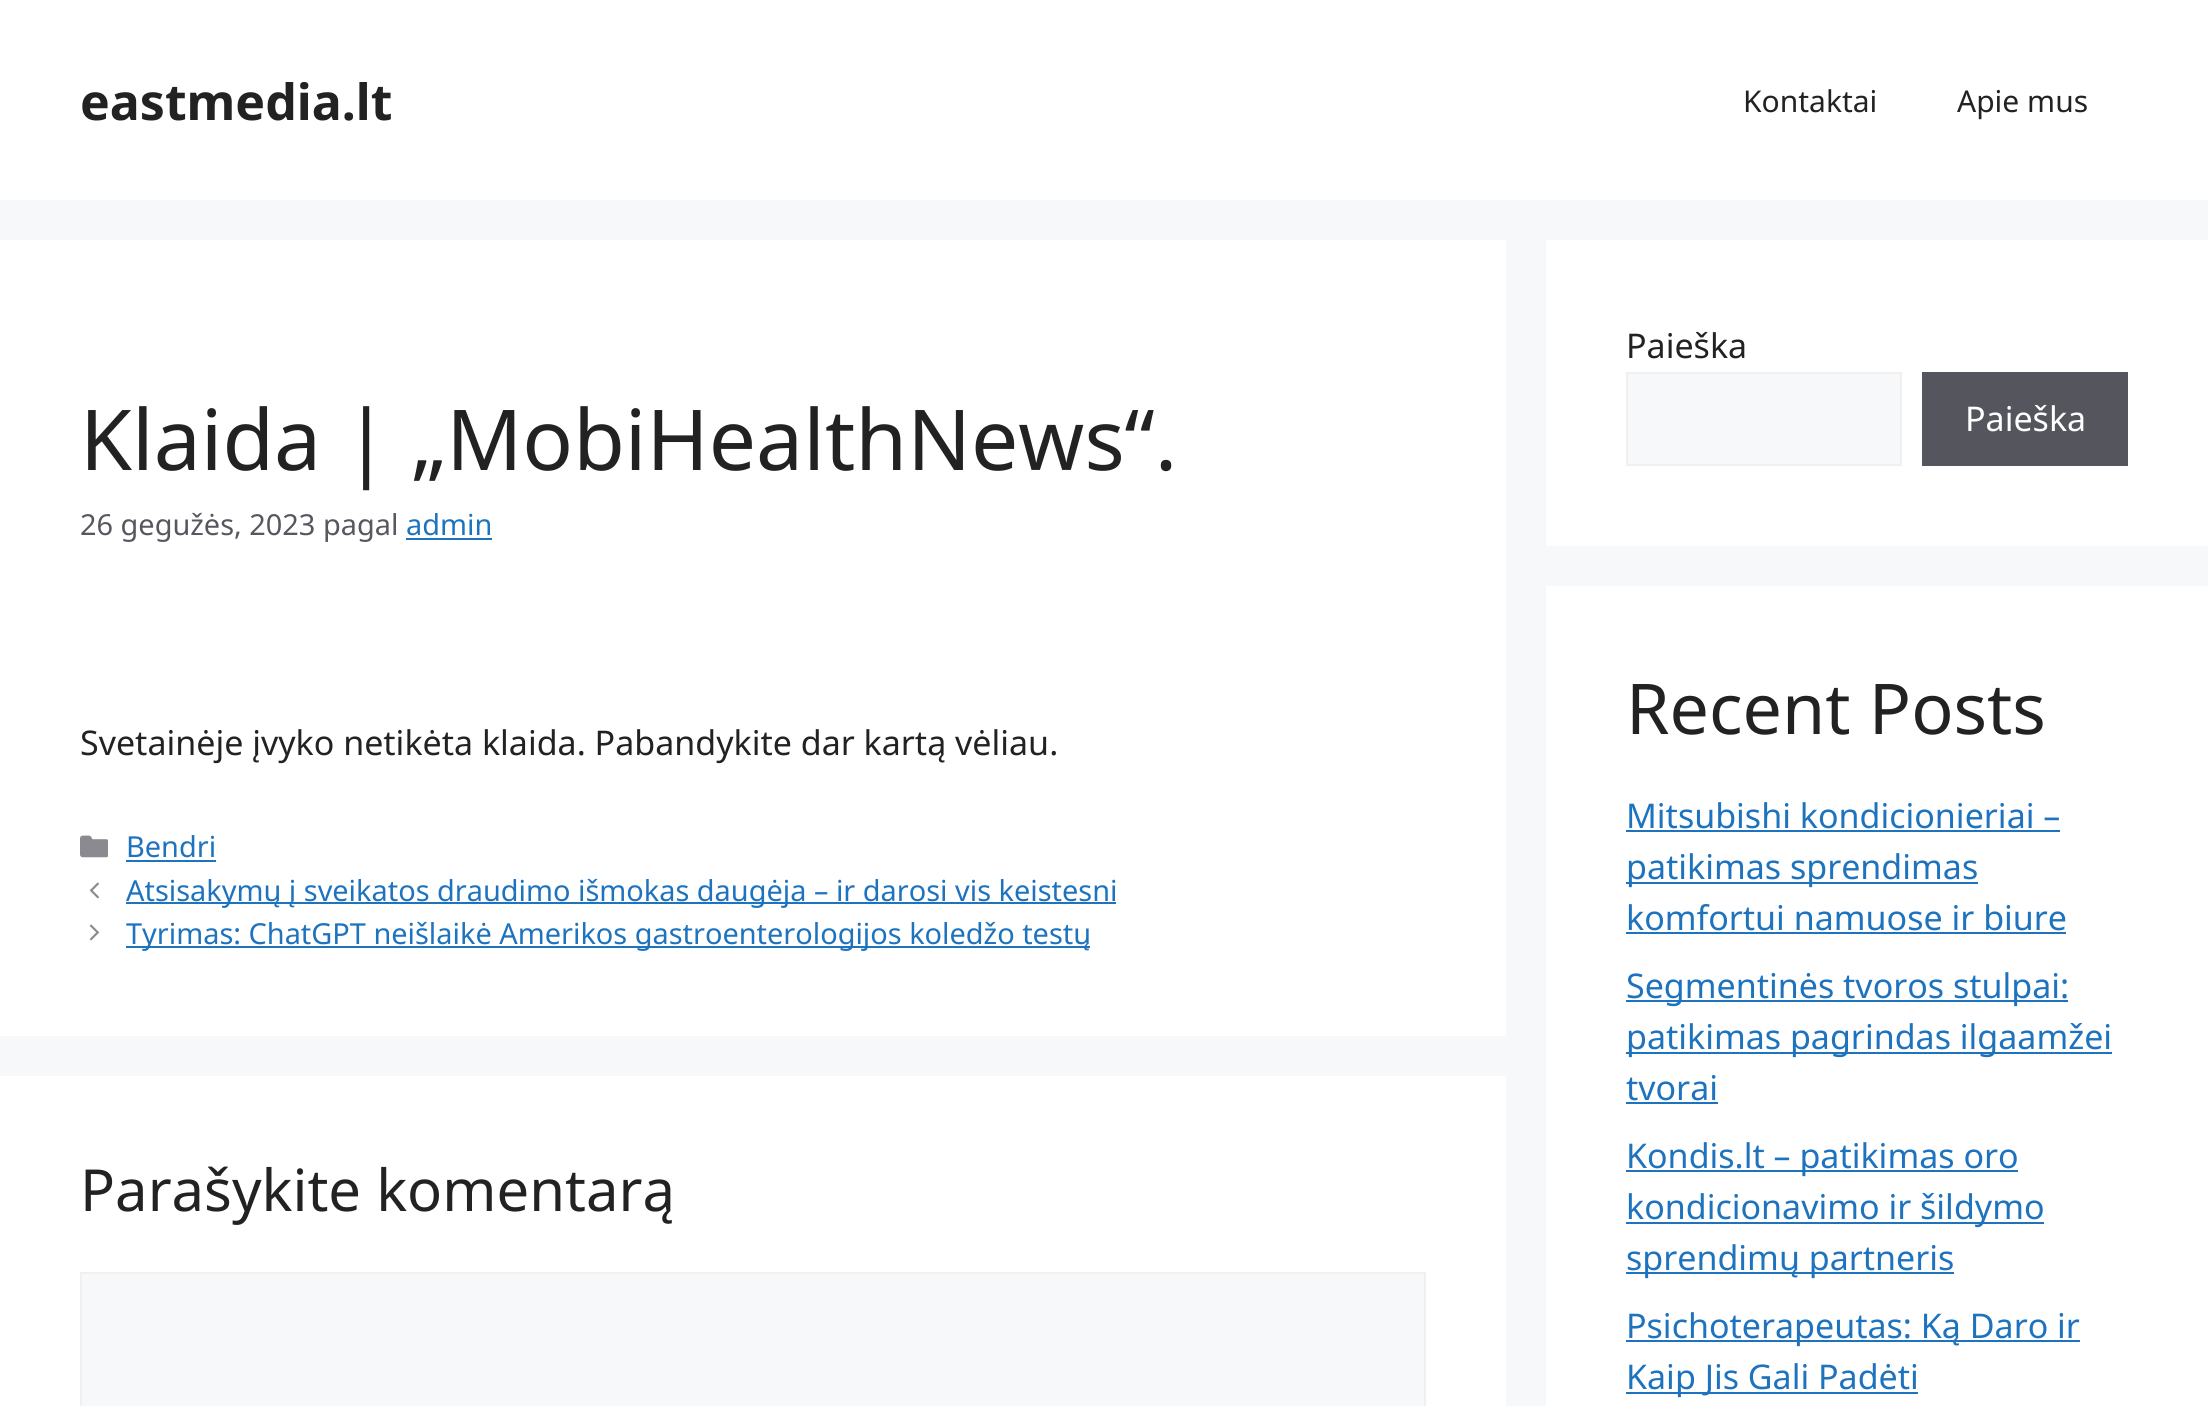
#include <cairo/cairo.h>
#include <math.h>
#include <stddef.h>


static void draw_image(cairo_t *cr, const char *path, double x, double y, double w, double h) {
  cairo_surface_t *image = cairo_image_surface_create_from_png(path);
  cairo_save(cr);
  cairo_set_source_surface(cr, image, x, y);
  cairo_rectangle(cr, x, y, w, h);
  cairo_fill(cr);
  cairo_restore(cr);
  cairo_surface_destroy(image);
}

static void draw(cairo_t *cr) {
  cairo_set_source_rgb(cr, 247 / 255.0, 248 / 255.0, 249 / 255.0);
  cairo_paint(cr);
  cairo_set_source_rgb(cr, 1, 1, 1);
  cairo_rectangle(cr, 0, 0, 2208, 200);
  cairo_fill(cr);
  cairo_rectangle(cr, 0, 240, 1506, 796);
  cairo_fill(cr);
  cairo_set_source_rgb(cr, 30 / 255.0, 115 / 255.0, 190 / 255.0);
  cairo_rectangle(cr, 406, 538, 86, 2);
  cairo_fill(cr);
  draw_image(cr, "images/1.png", 80, 835, 28, 23);
  cairo_rectangle(cr, 126, 860, 90, 2);
  cairo_fill(cr);
  draw_image(cr, "images/2.png", 89, 882, 10, 17);
  cairo_rectangle(cr, 126, 902, 990, 2);
  cairo_fill(cr);
  draw_image(cr, "images/3.png", 89, 924, 10, 17);
  cairo_rectangle(cr, 126, 946, 964, 2);
  cairo_fill(cr);
  cairo_set_source_rgb(cr, 1, 1, 1);
  cairo_rectangle(cr, 0, 1076, 1506, 330);
  cairo_fill(cr);
  cairo_set_source_rgb(cr, 247 / 255.0, 248 / 255.0, 249 / 255.0);
  cairo_rectangle(cr, 81, 1273, 1344, 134);
  cairo_fill_preserve(cr);
  cairo_set_source_rgb(cr, 240 / 255.0, 240 / 255.0, 240 / 255.0);
  cairo_stroke(cr);
  cairo_set_source_rgb(cr, 1, 1, 1);
  cairo_rectangle(cr, 1546, 240, 662, 306);
  cairo_fill(cr);
  cairo_set_source_rgb(cr, 247 / 255.0, 248 / 255.0, 249 / 255.0);
  cairo_rectangle(cr, 1627, 373, 274, 92);
  cairo_fill_preserve(cr);
  cairo_set_source_rgb(cr, 240 / 255.0, 240 / 255.0, 240 / 255.0);
  cairo_stroke(cr);
  cairo_set_source_rgb(cr, 85 / 255.0, 85 / 255.0, 94 / 255.0);
  cairo_rectangle(cr, 1922, 372, 206, 94);
  cairo_fill(cr);
  cairo_set_source_rgb(cr, 1, 1, 1);
  cairo_rectangle(cr, 1546, 586, 662, 820);
  cairo_fill(cr);
  cairo_set_source_rgb(cr, 30 / 255.0, 115 / 255.0, 190 / 255.0);
  cairo_rectangle(cr, 1626, 830, 434, 2);
  cairo_fill(cr);
  cairo_rectangle(cr, 1626, 882, 352, 2);
  cairo_fill(cr);
  cairo_rectangle(cr, 1626, 932, 440, 2);
  cairo_fill(cr);
  cairo_rectangle(cr, 1626, 1000, 442, 2);
  cairo_fill(cr);
  cairo_rectangle(cr, 1626, 1052, 486, 2);
  cairo_fill(cr);
  cairo_rectangle(cr, 1626, 1102, 92, 2);
  cairo_fill(cr);
  cairo_rectangle(cr, 1626, 1170, 392, 2);
  cairo_fill(cr);
  cairo_rectangle(cr, 1626, 1222, 418, 2);
  cairo_fill(cr);
  cairo_rectangle(cr, 1626, 1272, 328, 2);
  cairo_fill(cr);
  cairo_rectangle(cr, 1626, 1340, 454, 2);
  cairo_fill(cr);
  cairo_rectangle(cr, 1626, 1392, 292, 2);
  cairo_fill(cr);
  cairo_select_font_face(cr, "Noto Sans", CAIRO_FONT_SLANT_NORMAL, CAIRO_FONT_WEIGHT_BOLD);
  cairo_set_font_size(cr, 50);
  cairo_set_source_rgb(cr, 34 / 255.0, 34 / 255.0, 34 / 255.0);
  cairo_move_to(cr, 80, 120);
  cairo_show_text(cr, "eastmedia.lt");
  cairo_select_font_face(cr, "Noto Sans", CAIRO_FONT_SLANT_NORMAL, CAIRO_FONT_WEIGHT_NORMAL);
  cairo_set_font_size(cr, 30);
  cairo_move_to(cr, 1743, 112);
  cairo_show_text(cr, "Kontaktai");
  cairo_move_to(cr, 1957, 112);
  cairo_show_text(cr, "Apie mus");
  cairo_set_font_size(cr, 84);
  cairo_move_to(cr, 80, 470);
  cairo_show_text(cr, "Klaida | „MobiHealthNews“.");
  cairo_set_font_size(cr, 28.9);
  cairo_set_source_rgb(cr, 87 / 255.0, 87 / 255.0, 96 / 255.0);
  cairo_move_to(cr, 80, 535);
  cairo_show_text(cr, "26 gegužės, 2023 pagal");
  cairo_set_source_rgb(cr, 30 / 255.0, 115 / 255.0, 190 / 255.0);
  cairo_move_to(cr, 406, 535);
  cairo_show_text(cr, "admin");
  cairo_set_font_size(cr, 34);
  cairo_set_source_rgb(cr, 34 / 255.0, 34 / 255.0, 34 / 255.0);
  cairo_move_to(cr, 80, 755);
  cairo_show_text(cr, "Svetainėje įvyko netikėta klaida. Pabandykite dar kartą vėliau.");
  cairo_set_font_size(cr, 28.9);
  cairo_set_source_rgb(cr, 30 / 255.0, 115 / 255.0, 190 / 255.0);
  cairo_move_to(cr, 126, 857);
  cairo_show_text(cr, "Bendri");
  cairo_move_to(cr, 126, 901);
  cairo_show_text(cr, "Atsisakymų į sveikatos draudimo išmokas daugėja – ir darosi vis keistesni");
  cairo_move_to(cr, 126, 944);
  cairo_show_text(cr, "Tyrimas: ChatGPT neišlaikė Amerikos gastroenterologijos koledžo testų");
  cairo_set_font_size(cr, 58);
  cairo_set_source_rgb(cr, 34 / 255.0, 34 / 255.0, 34 / 255.0);
  cairo_move_to(cr, 80, 1211);
  cairo_show_text(cr, "Parašykite komentarą");
  cairo_set_font_size(cr, 34);
  cairo_move_to(cr, 1626, 358);
  cairo_show_text(cr, "Paieška");
  cairo_set_source_rgb(cr, 1, 1, 1);
  cairo_move_to(cr, 1965, 431);
  cairo_show_text(cr, "Paieška");
  cairo_set_font_size(cr, 70);
  cairo_set_source_rgb(cr, 34 / 255.0, 34 / 255.0, 34 / 255.0);
  cairo_move_to(cr, 1626, 734);
  cairo_show_text(cr, "Recent Posts");
  cairo_set_font_size(cr, 34);
  cairo_set_source_rgb(cr, 30 / 255.0, 115 / 255.0, 190 / 255.0);
  cairo_move_to(cr, 1626, 828);
  cairo_show_text(cr, "Mitsubishi kondicionieriai –");
  cairo_move_to(cr, 1626, 879);
  cairo_show_text(cr, "patikimas sprendimas");
  cairo_move_to(cr, 1626, 930);
  cairo_show_text(cr, "komfortui namuose ir biure");
  cairo_move_to(cr, 1626, 998);
  cairo_show_text(cr, "Segmentinės tvoros stulpai:");
  cairo_move_to(cr, 1626, 1049);
  cairo_show_text(cr, "patikimas pagrindas ilgaamžei");
  cairo_move_to(cr, 1626, 1100);
  cairo_show_text(cr, "tvorai");
  cairo_move_to(cr, 1626, 1168);
  cairo_show_text(cr, "Kondis.lt – patikimas oro");
  cairo_move_to(cr, 1626, 1219);
  cairo_show_text(cr, "kondicionavimo ir šildymo");
  cairo_move_to(cr, 1626, 1270);
  cairo_show_text(cr, "sprendimų partneris");
  cairo_move_to(cr, 1626, 1338);
  cairo_show_text(cr, "Psichoterapeutas: Ką Daro ir");
  cairo_move_to(cr, 1626, 1389);
  cairo_show_text(cr, "Kaip Jis Gali Padėti");
}

int main(void) {
  cairo_surface_t *surface = cairo_image_surface_create(CAIRO_FORMAT_RGB24, 2208, 1406);
  cairo_t *cr = cairo_create(surface);
  cairo_font_options_t *options = cairo_font_options_create();
  cairo_font_options_set_hint_metrics(options, CAIRO_HINT_METRICS_OFF);
  cairo_font_options_set_hint_style(options, CAIRO_HINT_STYLE_NONE);
  cairo_set_font_options(cr, options);
  cairo_set_miter_limit(cr, 4);
  draw(cr);
  cairo_surface_write_to_png(surface, "out.png");
  cairo_font_options_destroy(options);
  cairo_destroy(cr);
  cairo_surface_destroy(surface);
  return 0;
}
